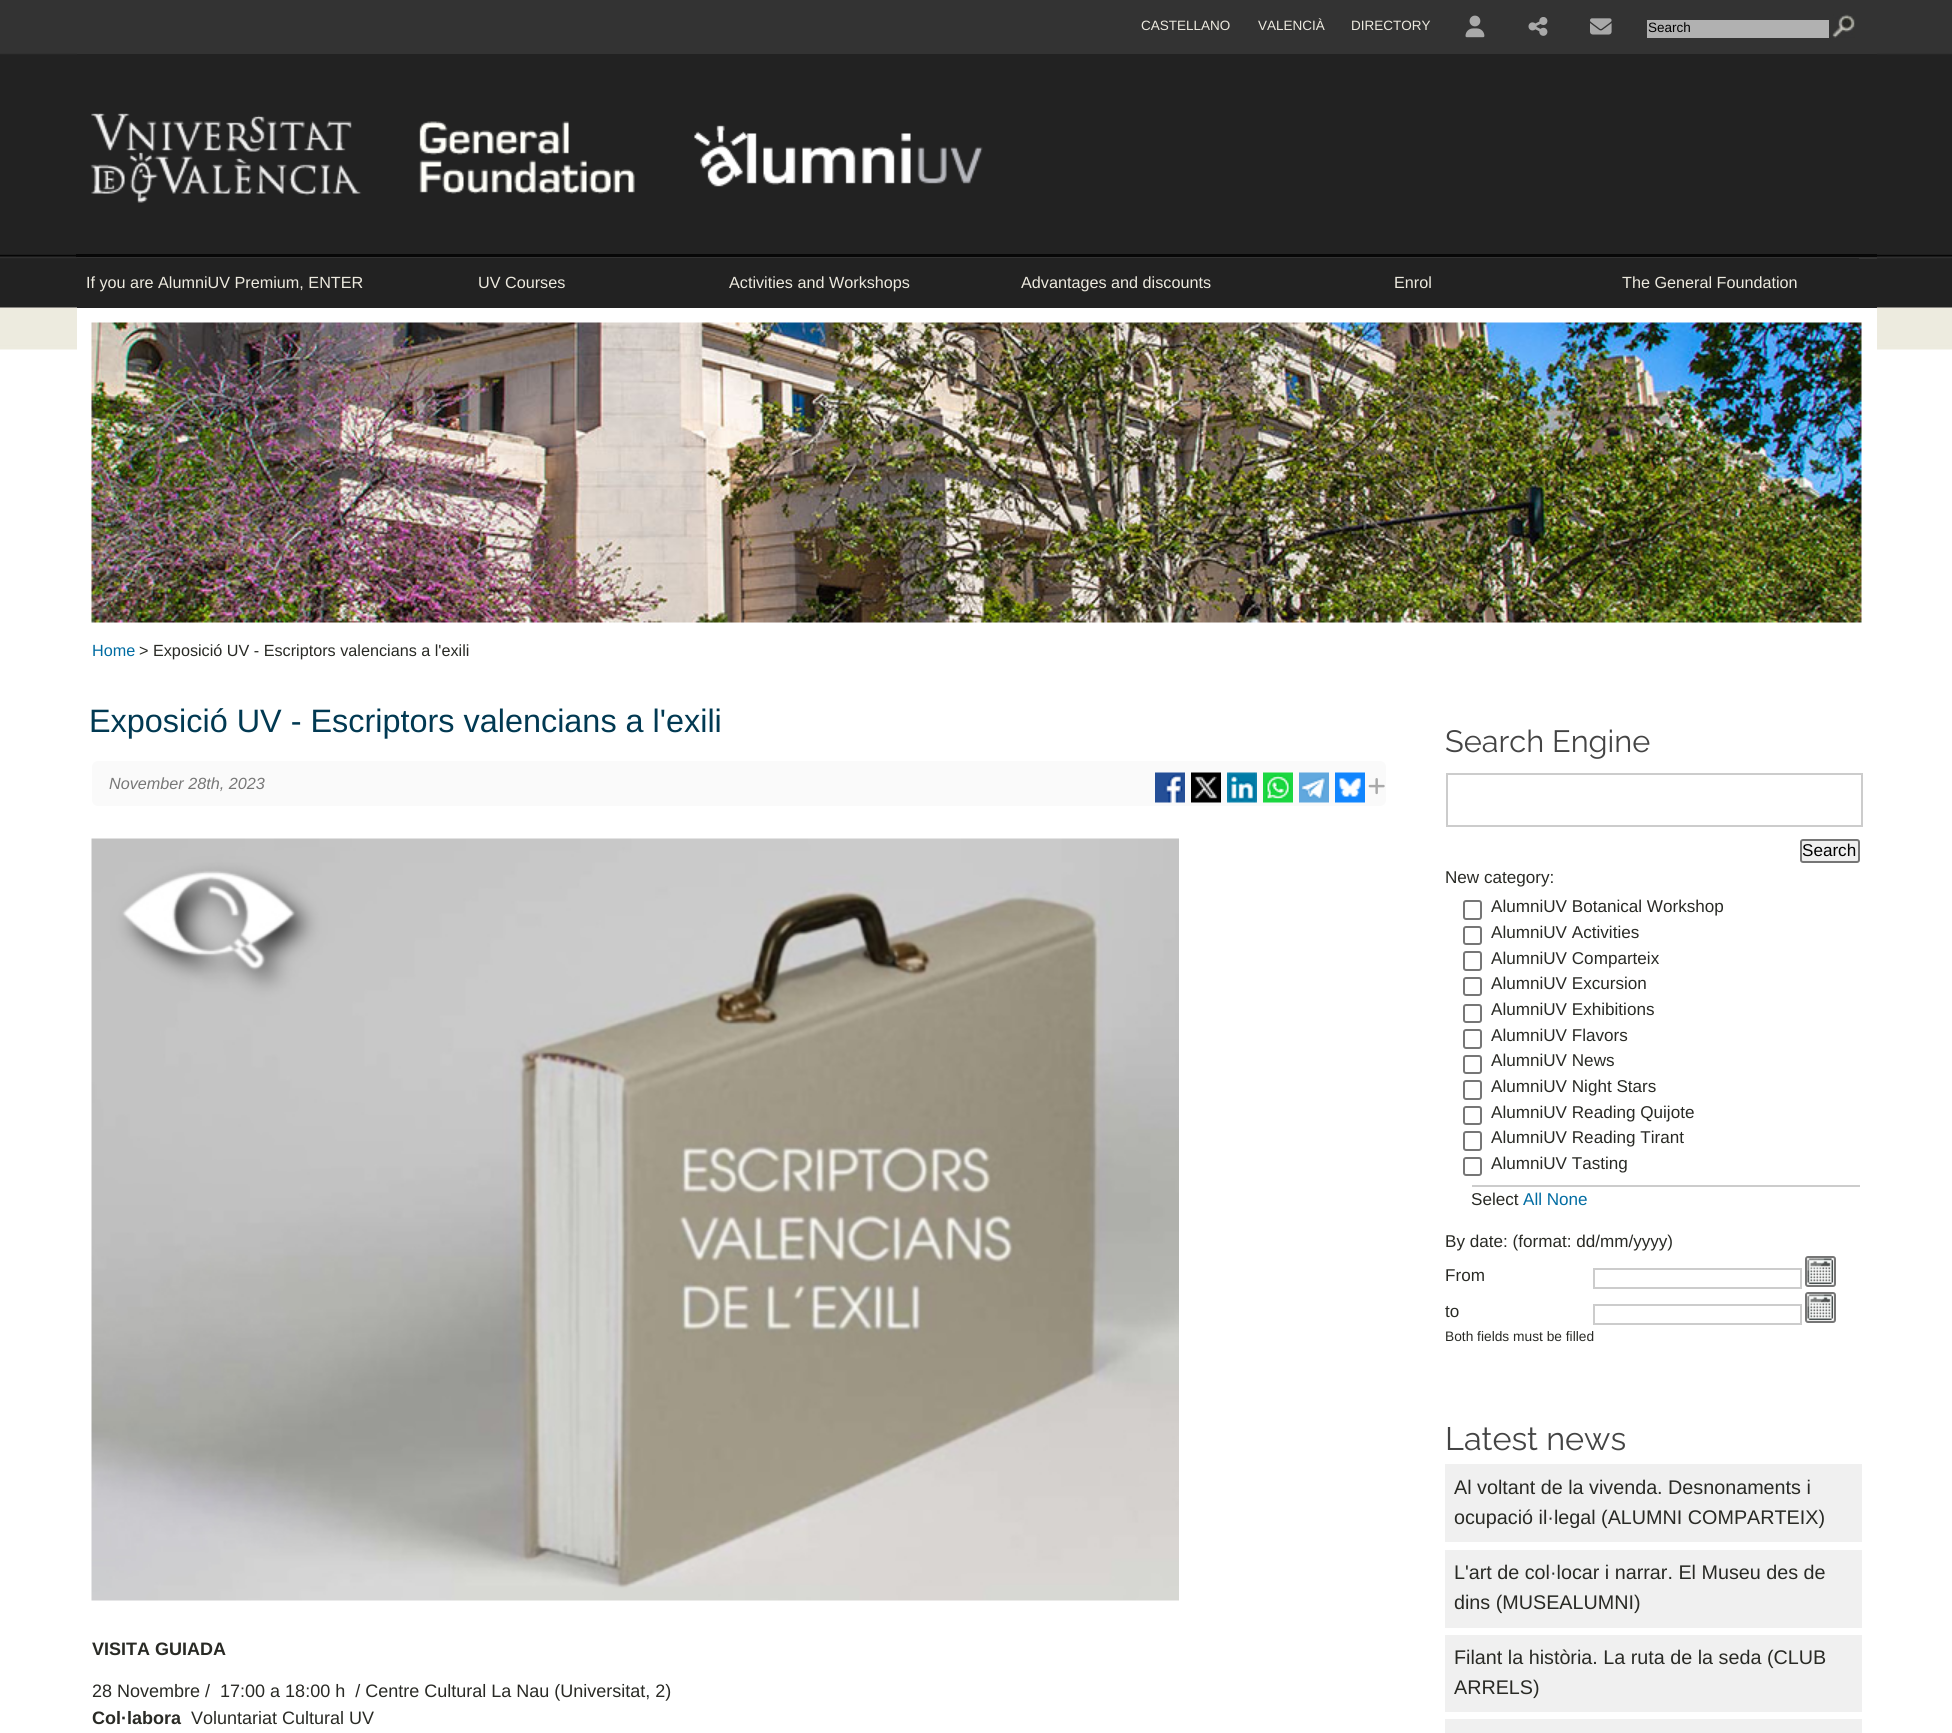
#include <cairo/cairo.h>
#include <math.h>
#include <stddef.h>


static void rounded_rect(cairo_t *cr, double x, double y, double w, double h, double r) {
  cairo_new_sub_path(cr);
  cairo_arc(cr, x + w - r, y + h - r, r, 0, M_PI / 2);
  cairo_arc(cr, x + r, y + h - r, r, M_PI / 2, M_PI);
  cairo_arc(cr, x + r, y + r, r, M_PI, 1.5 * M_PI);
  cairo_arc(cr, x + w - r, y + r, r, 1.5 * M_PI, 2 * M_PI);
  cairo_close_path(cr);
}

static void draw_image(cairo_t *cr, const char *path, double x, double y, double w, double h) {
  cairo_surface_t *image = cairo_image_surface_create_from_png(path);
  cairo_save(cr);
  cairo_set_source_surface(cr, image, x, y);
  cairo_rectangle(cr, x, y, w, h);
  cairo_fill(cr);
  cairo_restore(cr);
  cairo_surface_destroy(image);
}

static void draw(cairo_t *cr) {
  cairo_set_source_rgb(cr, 1, 1, 1);
  cairo_paint(cr);
  draw_image(cr, "images/1.png", 0, 0, 1952, 350);
  cairo_set_source_rgb(cr, 1, 1, 1);
  cairo_rectangle(cr, 77, 308, 1800, 42);
  cairo_fill(cr);
  cairo_set_source_rgb(cr, 51 / 255.0, 51 / 255.0, 51 / 255.0);
  cairo_rectangle(cr, 77, 53, 1800, 1);
  cairo_fill(cr);
  draw_image(cr, "images/2.png", 1465, 15, 20, 23);
  draw_image(cr, "images/3.png", 1528, 17, 20, 19);
  draw_image(cr, "images/4.png", 1590, 18, 22, 17);
  cairo_set_source_rgb(cr, 177 / 255.0, 177 / 255.0, 177 / 255.0);
  cairo_rectangle(cr, 1647, 20, 182, 18);
  cairo_fill(cr);
  draw_image(cr, "images/5.png", 1832, 14, 23, 24);
  cairo_set_source_rgb(cr, 34 / 255.0, 34 / 255.0, 34 / 255.0);
  cairo_rectangle(cr, 77, 54, 1800, 1);
  cairo_fill(cr);
  cairo_set_source_rgb(cr, 7 / 255.0, 7 / 255.0, 7 / 255.0);
  cairo_rectangle(cr, 76, 254, 1801, 3);
  cairo_fill(cr);
  draw_image(cr, "images/6.png", 90, 113, 893, 90);
  cairo_set_source_rgb(cr, 34 / 255.0, 34 / 255.0, 34 / 255.0);
  cairo_rectangle(cr, 1859, 307, 18, 1);
  cairo_fill(cr);
  cairo_set_source_rgb(cr, 51 / 255.0, 51 / 255.0, 51 / 255.0);
  cairo_rectangle(cr, 77, 257, 1800, 2);
  cairo_fill(cr);
  cairo_set_source_rgb(cr, 34 / 255.0, 34 / 255.0, 34 / 255.0);
  cairo_rectangle(cr, 77, 258, 1782, 50);
  cairo_fill(cr);
  draw_image(cr, "images/7.png", 91, 322, 1771, 301);
  cairo_set_source_rgb(cr, 250 / 255.0, 250 / 255.0, 250 / 255.0);
  rounded_rect(cr, 92, 761, 1294, 45, 6);
  cairo_fill(cr);
  draw_image(cr, "images/8.png", 1155, 772, 30, 31);
  draw_image(cr, "images/9.png", 1191, 772, 30, 31);
  draw_image(cr, "images/10.png", 1227, 772, 30, 31);
  draw_image(cr, "images/11.png", 1263, 772, 30, 31);
  draw_image(cr, "images/12.png", 1299, 772, 30, 31);
  draw_image(cr, "images/13.png", 1335, 772, 30, 31);
  draw_image(cr, "images/14.png", 1368, 778, 17, 17);
  draw_image(cr, "images/15.png", 91, 838, 1088, 763);
  cairo_rectangle(cr, 1447, 774, 415, 52);
  cairo_set_source_rgb(cr, 204 / 255.0, 204 / 255.0, 204 / 255.0);
  cairo_stroke(cr);
  cairo_set_source_rgb(cr, 239 / 255.0, 239 / 255.0, 239 / 255.0);
  rounded_rect(cr, 1801, 840, 58, 22, 2);
  cairo_fill_preserve(cr);
  cairo_set_source_rgb(cr, 118 / 255.0, 118 / 255.0, 118 / 255.0);
  cairo_stroke(cr);
  rounded_rect(cr, 1464, 901, 17, 18, 2);
  cairo_stroke(cr);
  rounded_rect(cr, 1464, 927, 17, 17, 2);
  cairo_stroke(cr);
  rounded_rect(cr, 1464, 952, 17, 18, 2);
  cairo_stroke(cr);
  rounded_rect(cr, 1464, 978, 17, 17, 2);
  cairo_stroke(cr);
  rounded_rect(cr, 1464, 1005, 17, 17, 2);
  cairo_stroke(cr);
  rounded_rect(cr, 1464, 1030, 17, 18, 2);
  cairo_stroke(cr);
  rounded_rect(cr, 1464, 1056, 17, 17, 2);
  cairo_stroke(cr);
  rounded_rect(cr, 1464, 1081, 17, 18, 2);
  cairo_stroke(cr);
  rounded_rect(cr, 1464, 1107, 17, 17, 2);
  cairo_stroke(cr);
  rounded_rect(cr, 1464, 1132, 17, 18, 2);
  cairo_stroke(cr);
  rounded_rect(cr, 1464, 1158, 17, 17, 2);
  cairo_stroke(cr);
  cairo_set_source_rgb(cr, 204 / 255.0, 204 / 255.0, 204 / 255.0);
  cairo_rectangle(cr, 1472, 1185, 388, 2);
  cairo_fill(cr);
  cairo_rectangle(cr, 1594, 1269, 207, 19);
  cairo_stroke(cr);
  cairo_set_source_rgb(cr, 239 / 255.0, 239 / 255.0, 239 / 255.0);
  rounded_rect(cr, 1806, 1257, 29, 29, 2);
  cairo_fill_preserve(cr);
  cairo_set_source_rgb(cr, 118 / 255.0, 118 / 255.0, 118 / 255.0);
  cairo_stroke(cr);
  draw_image(cr, "images/16.png", 1807, 1258, 26, 26);
  cairo_rectangle(cr, 1594, 1305, 207, 19);
  cairo_set_source_rgb(cr, 204 / 255.0, 204 / 255.0, 204 / 255.0);
  cairo_stroke(cr);
  cairo_set_source_rgb(cr, 239 / 255.0, 239 / 255.0, 239 / 255.0);
  rounded_rect(cr, 1806, 1293, 29, 29, 2);
  cairo_fill_preserve(cr);
  cairo_set_source_rgb(cr, 118 / 255.0, 118 / 255.0, 118 / 255.0);
  cairo_stroke(cr);
  draw_image(cr, "images/16.png", 1807, 1294, 26, 26);
  cairo_set_source_rgb(cr, 240 / 255.0, 240 / 255.0, 240 / 255.0);
  cairo_rectangle(cr, 1445, 1464, 417, 78);
  cairo_fill(cr);
  cairo_rectangle(cr, 1445, 1550, 417, 78);
  cairo_fill(cr);
  cairo_rectangle(cr, 1445, 1635, 417, 77);
  cairo_fill(cr);
  cairo_rectangle(cr, 1445, 1719, 417, 14);
  cairo_fill(cr);
  cairo_select_font_face(cr, "Liberation Sans", CAIRO_FONT_SLANT_NORMAL, CAIRO_FONT_WEIGHT_NORMAL);
  cairo_set_font_size(cr, 13.5);
  cairo_set_source_rgb(cr, 237 / 255.0, 234 / 255.0, 223 / 255.0);
  cairo_move_to(cr, 1141, 30);
  cairo_show_text(cr, "CASTELLANO");
  cairo_move_to(cr, 1258, 30);
  cairo_show_text(cr, "VALENCIÀ");
  cairo_move_to(cr, 1351, 30);
  cairo_show_text(cr, "DIRECTORY");
  cairo_set_source_rgb(cr, 0, 0, 0);
  cairo_move_to(cr, 1648, 32);
  cairo_show_text(cr, "Search");
  cairo_set_font_size(cr, 16.2);
  cairo_set_source_rgb(cr, 237 / 255.0, 234 / 255.0, 223 / 255.0);
  cairo_move_to(cr, 86, 288);
  cairo_show_text(cr, "If you are AlumniUV Premium, ENTER");
  cairo_move_to(cr, 478, 288);
  cairo_show_text(cr, "UV Courses");
  cairo_move_to(cr, 729, 288);
  cairo_show_text(cr, "Activities and Workshops");
  cairo_move_to(cr, 1021, 288);
  cairo_show_text(cr, "Advantages and discounts");
  cairo_move_to(cr, 1394, 288);
  cairo_show_text(cr, "Enrol");
  cairo_move_to(cr, 1622, 288);
  cairo_show_text(cr, "The General Foundation");
  cairo_set_source_rgb(cr, 1 / 255.0, 108 / 255.0, 162 / 255.0);
  cairo_move_to(cr, 92, 656);
  cairo_show_text(cr, "Home");
  cairo_set_source_rgb(cr, 41 / 255.0, 42 / 255.0, 37 / 255.0);
  cairo_move_to(cr, 139, 656);
  cairo_show_text(cr, "> Exposició UV - Escriptors valencians a l'exili");
  cairo_set_font_size(cr, 32.4);
  cairo_set_source_rgb(cr, 1 / 255.0, 57 / 255.0, 82 / 255.0);
  cairo_move_to(cr, 89, 732);
  cairo_show_text(cr, "Exposició UV - Escriptors valencians a l'exili");
  cairo_select_font_face(cr, "Liberation Sans", CAIRO_FONT_SLANT_ITALIC, CAIRO_FONT_WEIGHT_NORMAL);
  cairo_set_font_size(cr, 16.2);
  cairo_set_source_rgb(cr, 119 / 255.0, 119 / 255.0, 119 / 255.0);
  cairo_move_to(cr, 109, 789);
  cairo_show_text(cr, "November 28th, 2023");
  cairo_select_font_face(cr, "Liberation Sans", CAIRO_FONT_SLANT_NORMAL, CAIRO_FONT_WEIGHT_BOLD);
  cairo_set_font_size(cr, 18);
  cairo_set_source_rgb(cr, 41 / 255.0, 42 / 255.0, 37 / 255.0);
  cairo_move_to(cr, 92, 1655);
  cairo_show_text(cr, "VISITA GUIADA");
  cairo_select_font_face(cr, "Liberation Sans", CAIRO_FONT_SLANT_NORMAL, CAIRO_FONT_WEIGHT_NORMAL);
  cairo_move_to(cr, 92, 1697);
  cairo_show_text(cr, "28 Novembre /  17:00 a 18:00 h  / Centre Cultural La Nau (Universitat, 2)");
  cairo_select_font_face(cr, "Liberation Sans", CAIRO_FONT_SLANT_NORMAL, CAIRO_FONT_WEIGHT_BOLD);
  cairo_move_to(cr, 92, 1724);
  cairo_show_text(cr, "Col·labora");
  cairo_select_font_face(cr, "Liberation Sans", CAIRO_FONT_SLANT_NORMAL, CAIRO_FONT_WEIGHT_NORMAL);
  cairo_move_to(cr, 191, 1724);
  cairo_show_text(cr, "Voluntariat Cultural UV");
  cairo_select_font_face(cr, "Raleway", CAIRO_FONT_SLANT_NORMAL, CAIRO_FONT_WEIGHT_NORMAL);
  cairo_set_font_size(cr, 30.75);
  cairo_set_source_rgb(cr, 68 / 255.0, 68 / 255.0, 68 / 255.0);
  cairo_move_to(cr, 1445, 752);
  cairo_show_text(cr, "Search Engine");
  cairo_select_font_face(cr, "Liberation Sans", CAIRO_FONT_SLANT_NORMAL, CAIRO_FONT_WEIGHT_NORMAL);
  cairo_set_font_size(cr, 17.1);
  cairo_set_source_rgb(cr, 0, 0, 0);
  cairo_move_to(cr, 1802, 856);
  cairo_show_text(cr, "Search");
  cairo_set_source_rgb(cr, 41 / 255.0, 42 / 255.0, 37 / 255.0);
  cairo_move_to(cr, 1445, 883);
  cairo_show_text(cr, "New category:");
  cairo_move_to(cr, 1491, 912);
  cairo_show_text(cr, "AlumniUV Botanical Workshop");
  cairo_move_to(cr, 1491, 938);
  cairo_show_text(cr, "AlumniUV Activities");
  cairo_move_to(cr, 1491, 964);
  cairo_show_text(cr, "AlumniUV Comparteix");
  cairo_move_to(cr, 1491, 989);
  cairo_show_text(cr, "AlumniUV Excursion");
  cairo_move_to(cr, 1491, 1015);
  cairo_show_text(cr, "AlumniUV Exhibitions");
  cairo_move_to(cr, 1491, 1041);
  cairo_show_text(cr, "AlumniUV Flavors");
  cairo_move_to(cr, 1491, 1066);
  cairo_show_text(cr, "AlumniUV News");
  cairo_move_to(cr, 1491, 1092);
  cairo_show_text(cr, "AlumniUV Night Stars");
  cairo_move_to(cr, 1491, 1118);
  cairo_show_text(cr, "AlumniUV Reading Quijote");
  cairo_move_to(cr, 1491, 1143);
  cairo_show_text(cr, "AlumniUV Reading Tirant");
  cairo_move_to(cr, 1491, 1169);
  cairo_show_text(cr, "AlumniUV Tasting");
  cairo_move_to(cr, 1471, 1205);
  cairo_show_text(cr, "Select");
  cairo_set_source_rgb(cr, 1 / 255.0, 108 / 255.0, 162 / 255.0);
  cairo_move_to(cr, 1523, 1205);
  cairo_show_text(cr, "All None");
  cairo_set_source_rgb(cr, 41 / 255.0, 42 / 255.0, 37 / 255.0);
  cairo_move_to(cr, 1445, 1247);
  cairo_show_text(cr, "By date: (format: dd/mm/yyyy)");
  cairo_move_to(cr, 1445, 1281);
  cairo_show_text(cr, "From");
  cairo_move_to(cr, 1445, 1317);
  cairo_show_text(cr, "to");
  cairo_set_font_size(cr, 13.75);
  cairo_move_to(cr, 1445, 1341);
  cairo_show_text(cr, "Both fields must be filled");
  cairo_select_font_face(cr, "Raleway", CAIRO_FONT_SLANT_NORMAL, CAIRO_FONT_WEIGHT_NORMAL);
  cairo_set_font_size(cr, 32.4);
  cairo_set_source_rgb(cr, 68 / 255.0, 68 / 255.0, 68 / 255.0);
  cairo_move_to(cr, 1445, 1450);
  cairo_show_text(cr, "Latest news");
  cairo_select_font_face(cr, "Liberation Sans", CAIRO_FONT_SLANT_NORMAL, CAIRO_FONT_WEIGHT_NORMAL);
  cairo_set_font_size(cr, 19.75);
  cairo_set_source_rgb(cr, 41 / 255.0, 42 / 255.0, 37 / 255.0);
  cairo_move_to(cr, 1454, 1494);
  cairo_show_text(cr, "Al voltant de la vivenda. Desnonaments i");
  cairo_move_to(cr, 1454, 1524);
  cairo_show_text(cr, "ocupació il·legal (ALUMNI COMPARTEIX)");
  cairo_move_to(cr, 1454, 1579);
  cairo_show_text(cr, "L'art de col·locar i narrar. El Museu des de");
  cairo_move_to(cr, 1454, 1609);
  cairo_show_text(cr, "dins (MUSEALUMNI)");
  cairo_move_to(cr, 1454, 1664);
  cairo_show_text(cr, "Filant la història. La ruta de la seda (CLUB");
  cairo_move_to(cr, 1454, 1694);
  cairo_show_text(cr, "ARRELS)");
}

int main(void) {
  cairo_surface_t *surface = cairo_image_surface_create(CAIRO_FORMAT_RGB24, 1952, 1733);
  cairo_t *cr = cairo_create(surface);
  cairo_font_options_t *options = cairo_font_options_create();
  cairo_font_options_set_hint_metrics(options, CAIRO_HINT_METRICS_OFF);
  cairo_font_options_set_hint_style(options, CAIRO_HINT_STYLE_NONE);
  cairo_set_font_options(cr, options);
  cairo_set_miter_limit(cr, 4);
  draw(cr);
  cairo_surface_write_to_png(surface, "out.png");
  cairo_font_options_destroy(options);
  cairo_destroy(cr);
  cairo_surface_destroy(surface);
  return 0;
}
